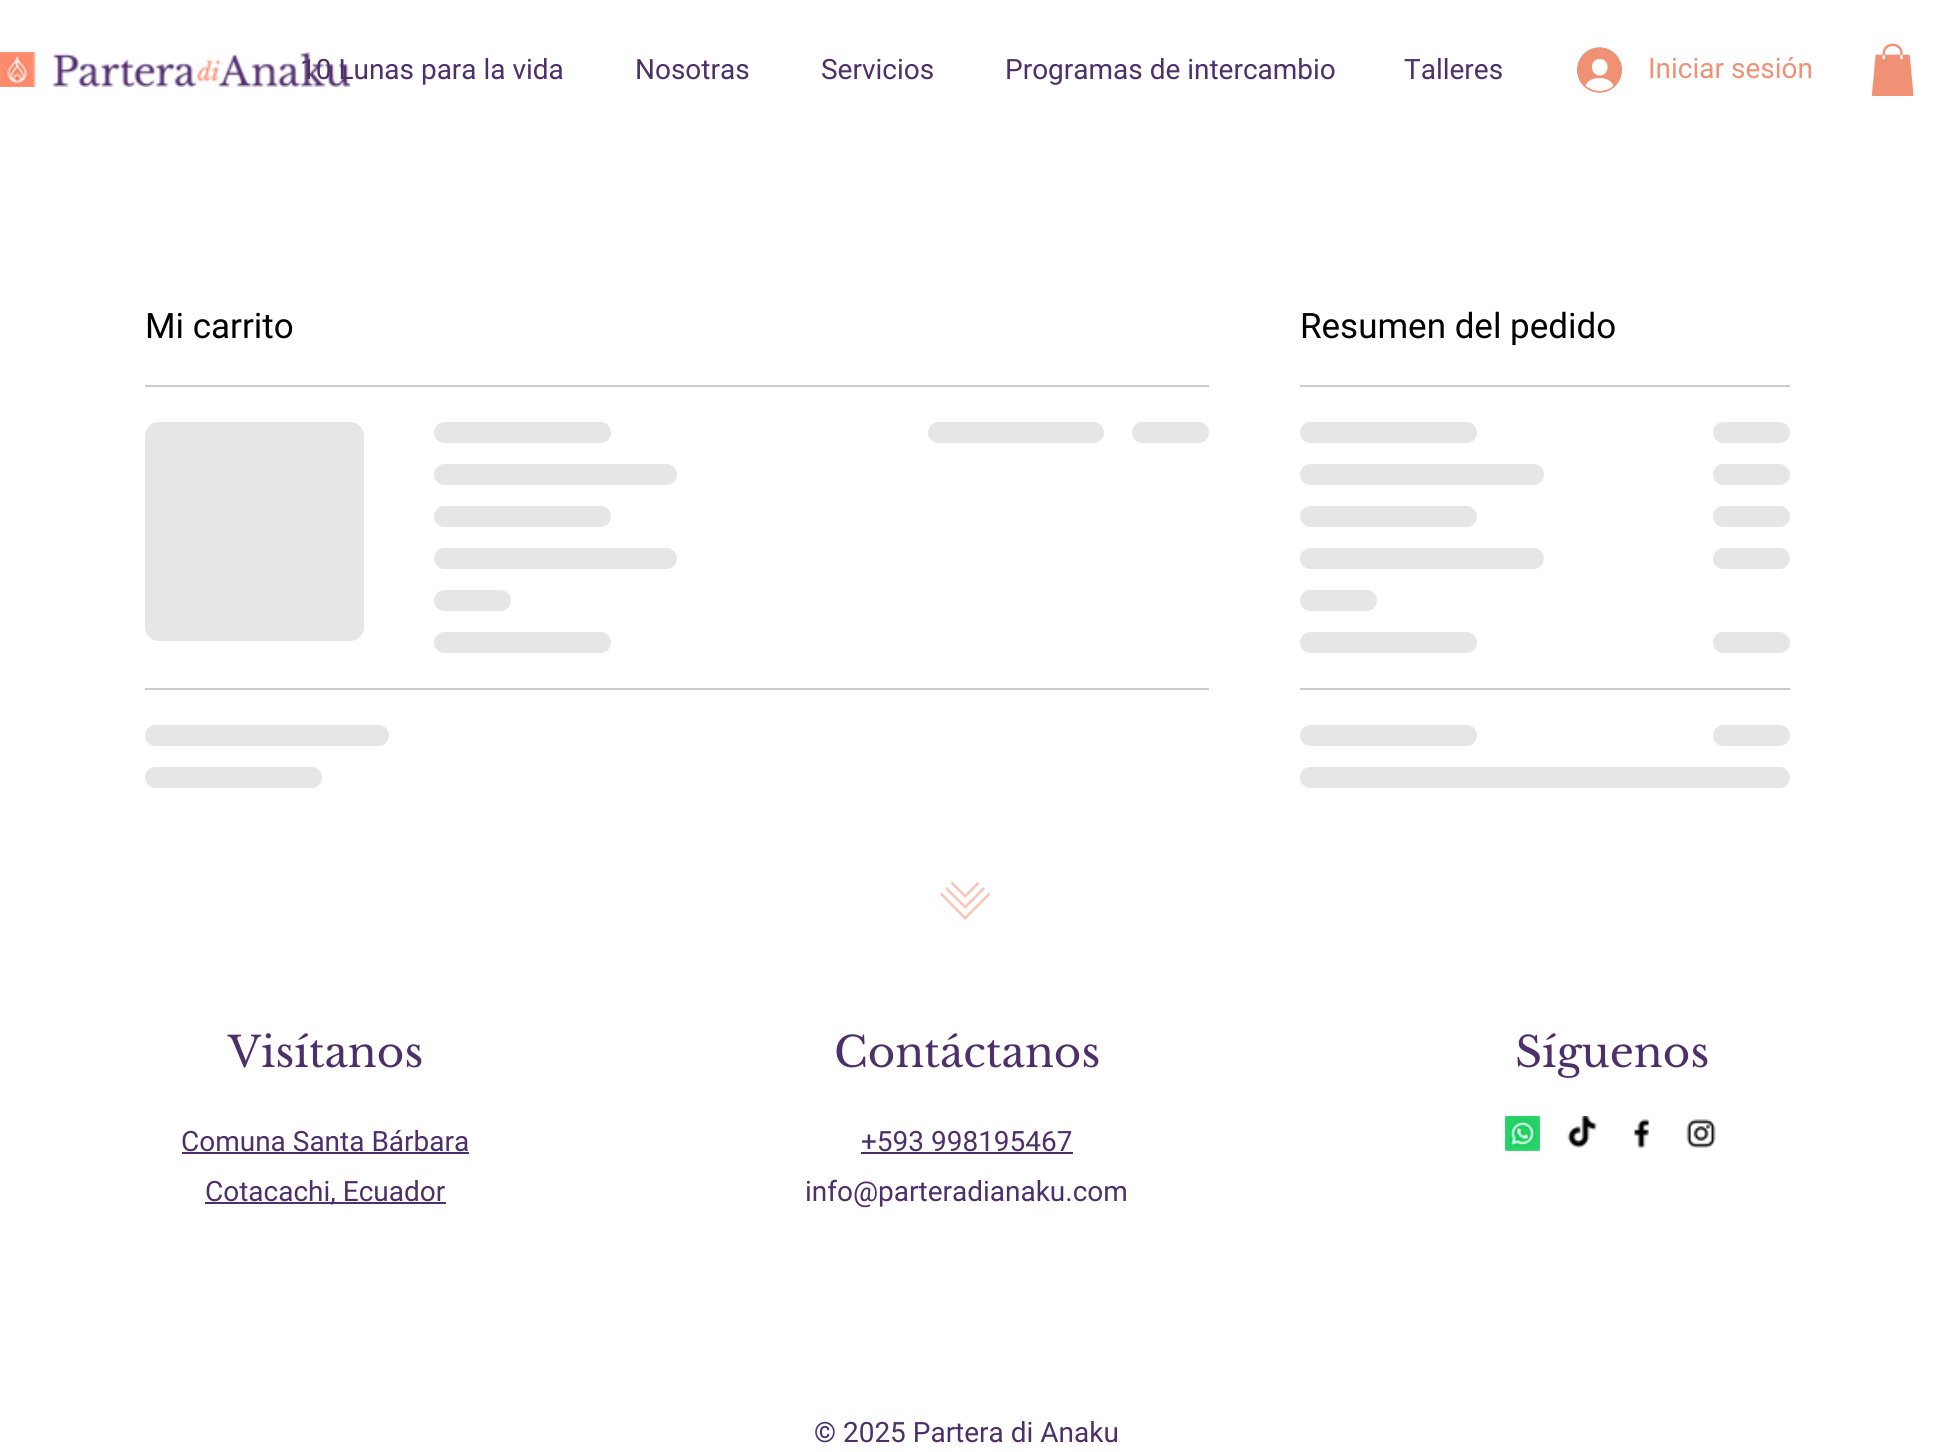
#include <cairo/cairo.h>
#include <math.h>
#include <stddef.h>


static void rounded_rect(cairo_t *cr, double x, double y, double w, double h, double r) {
  cairo_new_sub_path(cr);
  cairo_arc(cr, x + w - r, y + h - r, r, 0, M_PI / 2);
  cairo_arc(cr, x + r, y + h - r, r, M_PI / 2, M_PI);
  cairo_arc(cr, x + r, y + r, r, M_PI, 1.5 * M_PI);
  cairo_arc(cr, x + w - r, y + r, r, 1.5 * M_PI, 2 * M_PI);
  cairo_close_path(cr);
}

static void draw_image(cairo_t *cr, const char *path, double x, double y, double w, double h) {
  cairo_surface_t *image = cairo_image_surface_create_from_png(path);
  cairo_save(cr);
  cairo_set_source_surface(cr, image, x, y);
  cairo_rectangle(cr, x, y, w, h);
  cairo_fill(cr);
  cairo_restore(cr);
  cairo_surface_destroy(image);
}

static void draw(cairo_t *cr) {
  cairo_pattern_t *gradient;
  cairo_set_source_rgb(cr, 1, 1, 1);
  cairo_paint(cr);
  draw_image(cr, "images/1.png", 0, 52, 350, 35);
  draw_image(cr, "images/2.png", 1577, 47, 45, 46);
  draw_image(cr, "images/3.png", 1871, 43, 43, 53);
  cairo_set_source_rgb(cr, 204 / 255.0, 204 / 255.0, 204 / 255.0);
  cairo_rectangle(cr, 145, 385, 1064, 2);
  cairo_fill(cr);
  gradient = cairo_pattern_create_linear(145, 531, 1020, 531);
  cairo_pattern_add_color_stop_rgba(gradient, 0.25, 230 / 255.0, 230 / 255.0, 230 / 255.0, 1);
  cairo_pattern_add_color_stop_rgba(gradient, 0.37, 204 / 255.0, 204 / 255.0, 204 / 255.0, 1);
  cairo_pattern_add_color_stop_rgba(gradient, 0.63, 230 / 255.0, 230 / 255.0, 230 / 255.0, 1);
  cairo_set_source(cr, gradient);
  cairo_pattern_destroy(gradient);
  rounded_rect(cr, 145, 422, 219, 219, 14);
  cairo_fill(cr);
  gradient = cairo_pattern_create_linear(434, 432, 1141, 432);
  cairo_pattern_add_color_stop_rgba(gradient, 0.25, 230 / 255.0, 230 / 255.0, 230 / 255.0, 1);
  cairo_pattern_add_color_stop_rgba(gradient, 0.37, 204 / 255.0, 204 / 255.0, 204 / 255.0, 1);
  cairo_pattern_add_color_stop_rgba(gradient, 0.63, 230 / 255.0, 230 / 255.0, 230 / 255.0, 1);
  cairo_set_source(cr, gradient);
  cairo_pattern_destroy(gradient);
  rounded_rect(cr, 434, 422, 177, 21, 10.5);
  cairo_fill(cr);
  gradient = cairo_pattern_create_linear(434, 474, 1407, 474);
  cairo_pattern_add_color_stop_rgba(gradient, 0.25, 230 / 255.0, 230 / 255.0, 230 / 255.0, 1);
  cairo_pattern_add_color_stop_rgba(gradient, 0.37, 204 / 255.0, 204 / 255.0, 204 / 255.0, 1);
  cairo_pattern_add_color_stop_rgba(gradient, 0.63, 230 / 255.0, 230 / 255.0, 230 / 255.0, 1);
  cairo_set_source(cr, gradient);
  cairo_pattern_destroy(gradient);
  rounded_rect(cr, 434, 464, 243, 21, 10.5);
  cairo_fill(cr);
  gradient = cairo_pattern_create_linear(434, 516, 1141, 516);
  cairo_pattern_add_color_stop_rgba(gradient, 0.25, 230 / 255.0, 230 / 255.0, 230 / 255.0, 1);
  cairo_pattern_add_color_stop_rgba(gradient, 0.37, 204 / 255.0, 204 / 255.0, 204 / 255.0, 1);
  cairo_pattern_add_color_stop_rgba(gradient, 0.63, 230 / 255.0, 230 / 255.0, 230 / 255.0, 1);
  cairo_set_source(cr, gradient);
  cairo_pattern_destroy(gradient);
  rounded_rect(cr, 434, 506, 177, 21, 10.5);
  cairo_fill(cr);
  gradient = cairo_pattern_create_linear(434, 558, 1407, 558);
  cairo_pattern_add_color_stop_rgba(gradient, 0.25, 230 / 255.0, 230 / 255.0, 230 / 255.0, 1);
  cairo_pattern_add_color_stop_rgba(gradient, 0.37, 204 / 255.0, 204 / 255.0, 204 / 255.0, 1);
  cairo_pattern_add_color_stop_rgba(gradient, 0.63, 230 / 255.0, 230 / 255.0, 230 / 255.0, 1);
  cairo_set_source(cr, gradient);
  cairo_pattern_destroy(gradient);
  rounded_rect(cr, 434, 548, 243, 21, 10.5);
  cairo_fill(cr);
  gradient = cairo_pattern_create_linear(434, 600, 742, 600);
  cairo_pattern_add_color_stop_rgba(gradient, 0.25, 230 / 255.0, 230 / 255.0, 230 / 255.0, 1);
  cairo_pattern_add_color_stop_rgba(gradient, 0.37, 204 / 255.0, 204 / 255.0, 204 / 255.0, 1);
  cairo_pattern_add_color_stop_rgba(gradient, 0.63, 230 / 255.0, 230 / 255.0, 230 / 255.0, 1);
  cairo_set_source(cr, gradient);
  cairo_pattern_destroy(gradient);
  rounded_rect(cr, 434, 590, 77, 21, 10.5);
  cairo_fill(cr);
  gradient = cairo_pattern_create_linear(434, 642, 1141, 642);
  cairo_pattern_add_color_stop_rgba(gradient, 0.25, 230 / 255.0, 230 / 255.0, 230 / 255.0, 1);
  cairo_pattern_add_color_stop_rgba(gradient, 0.37, 204 / 255.0, 204 / 255.0, 204 / 255.0, 1);
  cairo_pattern_add_color_stop_rgba(gradient, 0.63, 230 / 255.0, 230 / 255.0, 230 / 255.0, 1);
  cairo_set_source(cr, gradient);
  cairo_pattern_destroy(gradient);
  rounded_rect(cr, 434, 632, 177, 21, 10.5);
  cairo_fill(cr);
  gradient = cairo_pattern_create_linear(928, 432, 1635, 432);
  cairo_pattern_add_color_stop_rgba(gradient, 0.25, 230 / 255.0, 230 / 255.0, 230 / 255.0, 1);
  cairo_pattern_add_color_stop_rgba(gradient, 0.37, 204 / 255.0, 204 / 255.0, 204 / 255.0, 1);
  cairo_pattern_add_color_stop_rgba(gradient, 0.63, 230 / 255.0, 230 / 255.0, 230 / 255.0, 1);
  cairo_set_source(cr, gradient);
  cairo_pattern_destroy(gradient);
  rounded_rect(cr, 928, 422, 176, 21, 10.5);
  cairo_fill(cr);
  gradient = cairo_pattern_create_linear(1132, 432, 1440, 432);
  cairo_pattern_add_color_stop_rgba(gradient, 0.25, 230 / 255.0, 230 / 255.0, 230 / 255.0, 1);
  cairo_pattern_add_color_stop_rgba(gradient, 0.37, 204 / 255.0, 204 / 255.0, 204 / 255.0, 1);
  cairo_pattern_add_color_stop_rgba(gradient, 0.63, 230 / 255.0, 230 / 255.0, 230 / 255.0, 1);
  cairo_set_source(cr, gradient);
  cairo_pattern_destroy(gradient);
  rounded_rect(cr, 1132, 422, 77, 21, 10.5);
  cairo_fill(cr);
  cairo_set_source_rgb(cr, 204 / 255.0, 204 / 255.0, 204 / 255.0);
  cairo_rectangle(cr, 145, 688, 1064, 2);
  cairo_fill(cr);
  gradient = cairo_pattern_create_linear(145, 735, 1118, 735);
  cairo_pattern_add_color_stop_rgba(gradient, 0.25, 230 / 255.0, 230 / 255.0, 230 / 255.0, 1);
  cairo_pattern_add_color_stop_rgba(gradient, 0.37, 204 / 255.0, 204 / 255.0, 204 / 255.0, 1);
  cairo_pattern_add_color_stop_rgba(gradient, 0.63, 230 / 255.0, 230 / 255.0, 230 / 255.0, 1);
  cairo_set_source(cr, gradient);
  cairo_pattern_destroy(gradient);
  rounded_rect(cr, 145, 725, 244, 21, 10.5);
  cairo_fill(cr);
  gradient = cairo_pattern_create_linear(145, 777, 852, 777);
  cairo_pattern_add_color_stop_rgba(gradient, 0.25, 230 / 255.0, 230 / 255.0, 230 / 255.0, 1);
  cairo_pattern_add_color_stop_rgba(gradient, 0.37, 204 / 255.0, 204 / 255.0, 204 / 255.0, 1);
  cairo_pattern_add_color_stop_rgba(gradient, 0.63, 230 / 255.0, 230 / 255.0, 230 / 255.0, 1);
  cairo_set_source(cr, gradient);
  cairo_pattern_destroy(gradient);
  rounded_rect(cr, 145, 767, 177, 21, 10.5);
  cairo_fill(cr);
  cairo_set_source_rgb(cr, 204 / 255.0, 204 / 255.0, 204 / 255.0);
  cairo_rectangle(cr, 1300, 385, 490, 2);
  cairo_fill(cr);
  gradient = cairo_pattern_create_linear(1300, 432, 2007, 432);
  cairo_pattern_add_color_stop_rgba(gradient, 0.25, 230 / 255.0, 230 / 255.0, 230 / 255.0, 1);
  cairo_pattern_add_color_stop_rgba(gradient, 0.37, 204 / 255.0, 204 / 255.0, 204 / 255.0, 1);
  cairo_pattern_add_color_stop_rgba(gradient, 0.63, 230 / 255.0, 230 / 255.0, 230 / 255.0, 1);
  cairo_set_source(cr, gradient);
  cairo_pattern_destroy(gradient);
  rounded_rect(cr, 1300, 422, 177, 21, 10.5);
  cairo_fill(cr);
  gradient = cairo_pattern_create_linear(1713, 432, 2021, 432);
  cairo_pattern_add_color_stop_rgba(gradient, 0.25, 230 / 255.0, 230 / 255.0, 230 / 255.0, 1);
  cairo_pattern_add_color_stop_rgba(gradient, 0.37, 204 / 255.0, 204 / 255.0, 204 / 255.0, 1);
  cairo_pattern_add_color_stop_rgba(gradient, 0.63, 230 / 255.0, 230 / 255.0, 230 / 255.0, 1);
  cairo_set_source(cr, gradient);
  cairo_pattern_destroy(gradient);
  rounded_rect(cr, 1713, 422, 77, 21, 10.5);
  cairo_fill(cr);
  gradient = cairo_pattern_create_linear(1300, 474, 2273, 474);
  cairo_pattern_add_color_stop_rgba(gradient, 0.25, 230 / 255.0, 230 / 255.0, 230 / 255.0, 1);
  cairo_pattern_add_color_stop_rgba(gradient, 0.37, 204 / 255.0, 204 / 255.0, 204 / 255.0, 1);
  cairo_pattern_add_color_stop_rgba(gradient, 0.63, 230 / 255.0, 230 / 255.0, 230 / 255.0, 1);
  cairo_set_source(cr, gradient);
  cairo_pattern_destroy(gradient);
  rounded_rect(cr, 1300, 464, 244, 21, 10.5);
  cairo_fill(cr);
  gradient = cairo_pattern_create_linear(1713, 474, 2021, 474);
  cairo_pattern_add_color_stop_rgba(gradient, 0.25, 230 / 255.0, 230 / 255.0, 230 / 255.0, 1);
  cairo_pattern_add_color_stop_rgba(gradient, 0.37, 204 / 255.0, 204 / 255.0, 204 / 255.0, 1);
  cairo_pattern_add_color_stop_rgba(gradient, 0.63, 230 / 255.0, 230 / 255.0, 230 / 255.0, 1);
  cairo_set_source(cr, gradient);
  cairo_pattern_destroy(gradient);
  rounded_rect(cr, 1713, 464, 77, 21, 10.5);
  cairo_fill(cr);
  gradient = cairo_pattern_create_linear(1300, 516, 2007, 516);
  cairo_pattern_add_color_stop_rgba(gradient, 0.25, 230 / 255.0, 230 / 255.0, 230 / 255.0, 1);
  cairo_pattern_add_color_stop_rgba(gradient, 0.37, 204 / 255.0, 204 / 255.0, 204 / 255.0, 1);
  cairo_pattern_add_color_stop_rgba(gradient, 0.63, 230 / 255.0, 230 / 255.0, 230 / 255.0, 1);
  cairo_set_source(cr, gradient);
  cairo_pattern_destroy(gradient);
  rounded_rect(cr, 1300, 506, 177, 21, 10.5);
  cairo_fill(cr);
  gradient = cairo_pattern_create_linear(1713, 516, 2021, 516);
  cairo_pattern_add_color_stop_rgba(gradient, 0.25, 230 / 255.0, 230 / 255.0, 230 / 255.0, 1);
  cairo_pattern_add_color_stop_rgba(gradient, 0.37, 204 / 255.0, 204 / 255.0, 204 / 255.0, 1);
  cairo_pattern_add_color_stop_rgba(gradient, 0.63, 230 / 255.0, 230 / 255.0, 230 / 255.0, 1);
  cairo_set_source(cr, gradient);
  cairo_pattern_destroy(gradient);
  rounded_rect(cr, 1713, 506, 77, 21, 10.5);
  cairo_fill(cr);
  gradient = cairo_pattern_create_linear(1300, 558, 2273, 558);
  cairo_pattern_add_color_stop_rgba(gradient, 0.25, 230 / 255.0, 230 / 255.0, 230 / 255.0, 1);
  cairo_pattern_add_color_stop_rgba(gradient, 0.37, 204 / 255.0, 204 / 255.0, 204 / 255.0, 1);
  cairo_pattern_add_color_stop_rgba(gradient, 0.63, 230 / 255.0, 230 / 255.0, 230 / 255.0, 1);
  cairo_set_source(cr, gradient);
  cairo_pattern_destroy(gradient);
  rounded_rect(cr, 1300, 548, 244, 21, 10.5);
  cairo_fill(cr);
  gradient = cairo_pattern_create_linear(1713, 558, 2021, 558);
  cairo_pattern_add_color_stop_rgba(gradient, 0.25, 230 / 255.0, 230 / 255.0, 230 / 255.0, 1);
  cairo_pattern_add_color_stop_rgba(gradient, 0.37, 204 / 255.0, 204 / 255.0, 204 / 255.0, 1);
  cairo_pattern_add_color_stop_rgba(gradient, 0.63, 230 / 255.0, 230 / 255.0, 230 / 255.0, 1);
  cairo_set_source(cr, gradient);
  cairo_pattern_destroy(gradient);
  rounded_rect(cr, 1713, 548, 77, 21, 10.5);
  cairo_fill(cr);
  gradient = cairo_pattern_create_linear(1300, 600, 1608, 600);
  cairo_pattern_add_color_stop_rgba(gradient, 0.25, 230 / 255.0, 230 / 255.0, 230 / 255.0, 1);
  cairo_pattern_add_color_stop_rgba(gradient, 0.37, 204 / 255.0, 204 / 255.0, 204 / 255.0, 1);
  cairo_pattern_add_color_stop_rgba(gradient, 0.63, 230 / 255.0, 230 / 255.0, 230 / 255.0, 1);
  cairo_set_source(cr, gradient);
  cairo_pattern_destroy(gradient);
  rounded_rect(cr, 1300, 590, 77, 21, 10.5);
  cairo_fill(cr);
  gradient = cairo_pattern_create_linear(1300, 642, 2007, 642);
  cairo_pattern_add_color_stop_rgba(gradient, 0.25, 230 / 255.0, 230 / 255.0, 230 / 255.0, 1);
  cairo_pattern_add_color_stop_rgba(gradient, 0.37, 204 / 255.0, 204 / 255.0, 204 / 255.0, 1);
  cairo_pattern_add_color_stop_rgba(gradient, 0.63, 230 / 255.0, 230 / 255.0, 230 / 255.0, 1);
  cairo_set_source(cr, gradient);
  cairo_pattern_destroy(gradient);
  rounded_rect(cr, 1300, 632, 177, 21, 10.5);
  cairo_fill(cr);
  gradient = cairo_pattern_create_linear(1713, 642, 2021, 642);
  cairo_pattern_add_color_stop_rgba(gradient, 0.25, 230 / 255.0, 230 / 255.0, 230 / 255.0, 1);
  cairo_pattern_add_color_stop_rgba(gradient, 0.37, 204 / 255.0, 204 / 255.0, 204 / 255.0, 1);
  cairo_pattern_add_color_stop_rgba(gradient, 0.63, 230 / 255.0, 230 / 255.0, 230 / 255.0, 1);
  cairo_set_source(cr, gradient);
  cairo_pattern_destroy(gradient);
  rounded_rect(cr, 1713, 632, 77, 21, 10.5);
  cairo_fill(cr);
  cairo_set_source_rgb(cr, 204 / 255.0, 204 / 255.0, 204 / 255.0);
  cairo_rectangle(cr, 1300, 688, 490, 2);
  cairo_fill(cr);
  gradient = cairo_pattern_create_linear(1300, 735, 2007, 735);
  cairo_pattern_add_color_stop_rgba(gradient, 0.25, 230 / 255.0, 230 / 255.0, 230 / 255.0, 1);
  cairo_pattern_add_color_stop_rgba(gradient, 0.37, 204 / 255.0, 204 / 255.0, 204 / 255.0, 1);
  cairo_pattern_add_color_stop_rgba(gradient, 0.63, 230 / 255.0, 230 / 255.0, 230 / 255.0, 1);
  cairo_set_source(cr, gradient);
  cairo_pattern_destroy(gradient);
  rounded_rect(cr, 1300, 725, 177, 21, 10.5);
  cairo_fill(cr);
  gradient = cairo_pattern_create_linear(1713, 735, 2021, 735);
  cairo_pattern_add_color_stop_rgba(gradient, 0.25, 230 / 255.0, 230 / 255.0, 230 / 255.0, 1);
  cairo_pattern_add_color_stop_rgba(gradient, 0.37, 204 / 255.0, 204 / 255.0, 204 / 255.0, 1);
  cairo_pattern_add_color_stop_rgba(gradient, 0.63, 230 / 255.0, 230 / 255.0, 230 / 255.0, 1);
  cairo_set_source(cr, gradient);
  cairo_pattern_destroy(gradient);
  rounded_rect(cr, 1713, 725, 77, 21, 10.5);
  cairo_fill(cr);
  gradient = cairo_pattern_create_linear(1300, 777, 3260, 777);
  cairo_pattern_add_color_stop_rgba(gradient, 0.25, 230 / 255.0, 230 / 255.0, 230 / 255.0, 1);
  cairo_pattern_add_color_stop_rgba(gradient, 0.37, 204 / 255.0, 204 / 255.0, 204 / 255.0, 1);
  cairo_pattern_add_color_stop_rgba(gradient, 0.63, 230 / 255.0, 230 / 255.0, 230 / 255.0, 1);
  cairo_set_source(cr, gradient);
  cairo_pattern_destroy(gradient);
  rounded_rect(cr, 1300, 767, 490, 21, 10.5);
  cairo_fill(cr);
  draw_image(cr, "images/4.png", 939, 881, 52, 39);
  cairo_set_source_rgb(cr, 77 / 255.0, 47 / 255.0, 105 / 255.0);
  cairo_rectangle(cr, 182, 1152, 287, 2);
  cairo_fill(cr);
  cairo_rectangle(cr, 205, 1202, 241, 2);
  cairo_fill(cr);
  cairo_rectangle(cr, 861, 1152, 212, 2);
  cairo_fill(cr);
  draw_image(cr, "images/5.png", 1505, 1116, 35, 35);
  draw_image(cr, "images/6.png", 1567, 1116, 30, 32);
  draw_image(cr, "images/7.png", 1634, 1119, 16, 29);
  draw_image(cr, "images/8.png", 1686, 1119, 30, 29);
  cairo_select_font_face(cr, "Roboto", CAIRO_FONT_SLANT_NORMAL, CAIRO_FONT_WEIGHT_NORMAL);
  cairo_set_font_size(cr, 28);
  cairo_move_to(cr, 300, 79);
  cairo_show_text(cr, "10 Lunas para la vida");
  cairo_move_to(cr, 635, 79);
  cairo_show_text(cr, "Nosotras");
  cairo_move_to(cr, 821, 79);
  cairo_show_text(cr, "Servicios");
  cairo_move_to(cr, 1005, 79);
  cairo_show_text(cr, "Programas de intercambio");
  cairo_move_to(cr, 1404, 79);
  cairo_show_text(cr, "Talleres");
  cairo_set_source_rgb(cr, 240 / 255.0, 144 / 255.0, 116 / 255.0);
  cairo_move_to(cr, 1648, 78);
  cairo_show_text(cr, "Iniciar sesión");
  cairo_set_font_size(cr, 35);
  cairo_set_source_rgb(cr, 0, 0, 0);
  cairo_move_to(cr, 145, 338);
  cairo_show_text(cr, "Mi carrito");
  cairo_move_to(cr, 1300, 338);
  cairo_show_text(cr, "Resumen del pedido");
  cairo_select_font_face(cr, "Libre Baskerville", CAIRO_FONT_SLANT_NORMAL, CAIRO_FONT_WEIGHT_NORMAL);
  cairo_set_font_size(cr, 42);
  cairo_set_source_rgb(cr, 77 / 255.0, 47 / 255.0, 105 / 255.0);
  cairo_move_to(cr, 228, 1067);
  cairo_show_text(cr, "Visítanos");
  cairo_select_font_face(cr, "Roboto", CAIRO_FONT_SLANT_NORMAL, CAIRO_FONT_WEIGHT_NORMAL);
  cairo_set_font_size(cr, 28);
  cairo_move_to(cr, 181, 1151);
  cairo_show_text(cr, "Comuna Santa Bárbara");
  cairo_move_to(cr, 205, 1201);
  cairo_show_text(cr, "Cotacachi, Ecuador");
  cairo_select_font_face(cr, "Libre Baskerville", CAIRO_FONT_SLANT_NORMAL, CAIRO_FONT_WEIGHT_NORMAL);
  cairo_set_font_size(cr, 42);
  cairo_move_to(cr, 834, 1067);
  cairo_show_text(cr, "Contáctanos");
  cairo_select_font_face(cr, "Roboto", CAIRO_FONT_SLANT_NORMAL, CAIRO_FONT_WEIGHT_NORMAL);
  cairo_set_font_size(cr, 28);
  cairo_move_to(cr, 861, 1151);
  cairo_show_text(cr, "+593 998195467");
  cairo_move_to(cr, 805, 1201);
  cairo_show_text(cr, "info@parteradianaku.com");
  cairo_select_font_face(cr, "Libre Baskerville", CAIRO_FONT_SLANT_NORMAL, CAIRO_FONT_WEIGHT_NORMAL);
  cairo_set_font_size(cr, 42);
  cairo_move_to(cr, 1515, 1067);
  cairo_show_text(cr, "Síguenos");
  cairo_select_font_face(cr, "Roboto", CAIRO_FONT_SLANT_NORMAL, CAIRO_FONT_WEIGHT_NORMAL);
  cairo_set_font_size(cr, 28);
  cairo_move_to(cr, 814, 1442);
  cairo_show_text(cr, "© 2025 Partera di Anaku");
}

int main(void) {
  cairo_surface_t *surface = cairo_image_surface_create(CAIRO_FORMAT_RGB24, 1934, 1452);
  cairo_t *cr = cairo_create(surface);
  cairo_font_options_t *options = cairo_font_options_create();
  cairo_font_options_set_hint_metrics(options, CAIRO_HINT_METRICS_OFF);
  cairo_font_options_set_hint_style(options, CAIRO_HINT_STYLE_NONE);
  cairo_set_font_options(cr, options);
  cairo_set_miter_limit(cr, 4);
  draw(cr);
  cairo_surface_write_to_png(surface, "out.png");
  cairo_font_options_destroy(options);
  cairo_destroy(cr);
  cairo_surface_destroy(surface);
  return 0;
}
